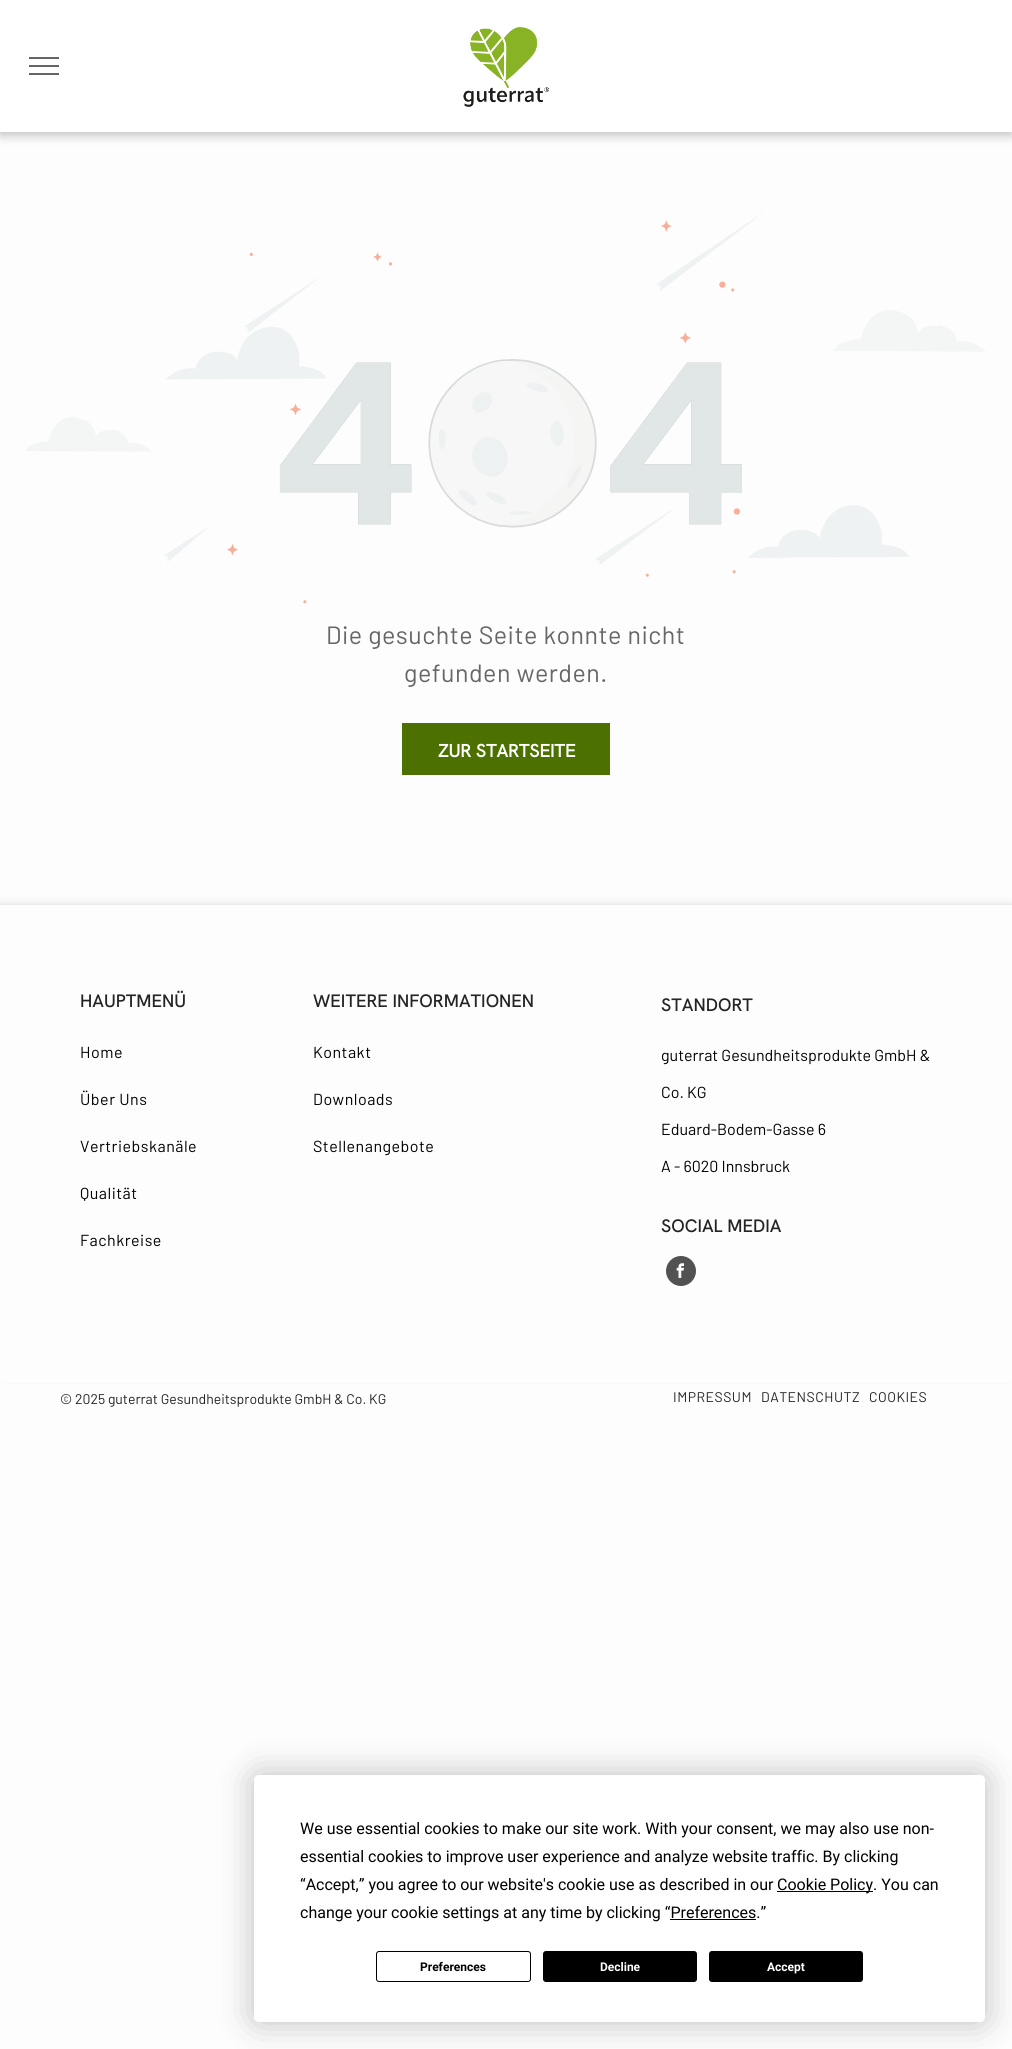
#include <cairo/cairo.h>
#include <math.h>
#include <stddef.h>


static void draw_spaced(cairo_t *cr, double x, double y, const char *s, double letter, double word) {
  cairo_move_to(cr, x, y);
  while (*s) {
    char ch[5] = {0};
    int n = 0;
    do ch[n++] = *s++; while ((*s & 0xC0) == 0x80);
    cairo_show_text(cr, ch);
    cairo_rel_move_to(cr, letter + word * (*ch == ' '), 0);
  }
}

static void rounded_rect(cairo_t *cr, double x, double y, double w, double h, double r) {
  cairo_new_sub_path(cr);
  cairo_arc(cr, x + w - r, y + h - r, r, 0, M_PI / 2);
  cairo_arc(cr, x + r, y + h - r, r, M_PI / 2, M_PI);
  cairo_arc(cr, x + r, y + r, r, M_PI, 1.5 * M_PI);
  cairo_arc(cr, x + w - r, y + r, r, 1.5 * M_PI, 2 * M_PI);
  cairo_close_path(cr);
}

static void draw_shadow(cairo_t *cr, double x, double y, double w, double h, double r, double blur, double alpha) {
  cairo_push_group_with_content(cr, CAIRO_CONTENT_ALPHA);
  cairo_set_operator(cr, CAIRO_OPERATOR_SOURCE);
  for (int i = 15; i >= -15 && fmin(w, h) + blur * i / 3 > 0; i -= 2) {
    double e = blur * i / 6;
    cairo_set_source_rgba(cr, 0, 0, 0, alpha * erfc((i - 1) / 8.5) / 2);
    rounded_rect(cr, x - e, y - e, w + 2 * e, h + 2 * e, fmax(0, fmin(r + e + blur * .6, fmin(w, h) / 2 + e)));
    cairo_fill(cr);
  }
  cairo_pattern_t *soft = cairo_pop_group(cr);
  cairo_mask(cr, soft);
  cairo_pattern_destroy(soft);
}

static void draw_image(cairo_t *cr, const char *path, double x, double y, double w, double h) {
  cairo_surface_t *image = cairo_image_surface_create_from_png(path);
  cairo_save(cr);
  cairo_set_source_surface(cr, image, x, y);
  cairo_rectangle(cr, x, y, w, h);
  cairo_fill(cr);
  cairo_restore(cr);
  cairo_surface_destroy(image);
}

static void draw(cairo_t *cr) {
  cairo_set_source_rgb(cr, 253 / 255.0, 253 / 255.0, 253 / 255.0);
  cairo_paint(cr);
  cairo_set_source_rgb(cr, 0, 0, 0);
  draw_shadow(cr, 0, 3, 1012, 132, 0, 5.5, 0.25);
  cairo_set_source_rgb(cr, 1, 1, 1);
  cairo_rectangle(cr, 0, 0, 1012, 132);
  cairo_fill(cr);
  draw_image(cr, "images/1.png", 463, 27, 87, 80);
  cairo_set_source_rgb(cr, 102 / 255.0, 102 / 255.0, 102 / 255.0);
  cairo_rectangle(cr, 29, 57, 30, 2);
  cairo_fill(cr);
  cairo_rectangle(cr, 29, 65, 30, 2);
  cairo_fill(cr);
  cairo_rectangle(cr, 29, 73, 30, 2);
  cairo_fill(cr);
  draw_image(cr, "images/2.png", 26, 212, 960, 392);
  cairo_set_source_rgb(cr, 76 / 255.0, 113 / 255.0, 1 / 255.0);
  cairo_rectangle(cr, 402, 723, 208, 52);
  cairo_fill(cr);
  cairo_set_source_rgb(cr, 0, 0, 0);
  draw_shadow(cr, 0, 908, 1012, 466, 0, 5.5, 0.25);
  cairo_set_source_rgb(cr, 253 / 255.0, 253 / 255.0, 253 / 255.0);
  cairo_rectangle(cr, 0, 905, 1012, 478);
  cairo_fill(cr);
  cairo_set_source_rgb(cr, 82 / 255.0, 82 / 255.0, 82 / 255.0);
  cairo_arc(cr, 681, 1271, 15, 0, 2 * M_PI);
  cairo_fill(cr);
  draw_image(cr, "images/3.png", 676, 1263, 8, 15);
  cairo_set_source_rgb(cr, 0, 0, 0);
  draw_shadow(cr, 254, 1775, 731, 247, 5, 17.5, 0.25);
  cairo_set_source_rgb(cr, 1, 1, 1);
  rounded_rect(cr, 254, 1775, 731, 247, 5);
  cairo_fill(cr);
  cairo_set_source_rgb(cr, 0, 0, 0);
  cairo_rectangle(cr, 777, 1891, 96, 1);
  cairo_fill(cr);
  cairo_rectangle(cr, 670, 1919, 86, 1);
  cairo_fill(cr);
  rounded_rect(cr, 376.5, 1951.5, 154, 30, 2.5);
  cairo_set_line_width(cr, 1);
  cairo_stroke(cr);
  rounded_rect(cr, 543.5, 1951.5, 153, 30, 2.5);
  cairo_fill_preserve(cr);
  cairo_stroke(cr);
  rounded_rect(cr, 709.5, 1951.5, 153, 30, 2.5);
  cairo_fill_preserve(cr);
  cairo_stroke(cr);
  cairo_select_font_face(cr, "Barlow", CAIRO_FONT_SLANT_NORMAL, CAIRO_FONT_WEIGHT_NORMAL);
  cairo_set_font_size(cr, 25);
  cairo_set_source_rgb(cr, 102 / 255.0, 102 / 255.0, 102 / 255.0);
  draw_spaced(cr, 326, 644, "Die gesuchte Seite konnte nicht", 0.5, 0);
  draw_spaced(cr, 404, 682, "gefunden werden.", 0.5, 0);
  cairo_select_font_face(cr, "Hanken Grotesk", CAIRO_FONT_SLANT_NORMAL, CAIRO_FONT_WEIGHT_BOLD);
  cairo_set_font_size(cr, 18);
  cairo_set_source_rgb(cr, 1, 1, 1);
  cairo_move_to(cr, 438, 757);
  cairo_show_text(cr, "ZUR STARTSEITE");
  cairo_select_font_face(cr, "Hanken Grotesk Medium", CAIRO_FONT_SLANT_NORMAL, CAIRO_FONT_WEIGHT_NORMAL);
  cairo_set_source_rgb(cr, 36 / 255.0, 36 / 255.0, 36 / 255.0);
  cairo_move_to(cr, 80, 1007);
  cairo_show_text(cr, "HAUPTMENÜ");
  cairo_select_font_face(cr, "Barlow", CAIRO_FONT_SLANT_NORMAL, CAIRO_FONT_WEIGHT_NORMAL);
  cairo_set_font_size(cr, 16);
  cairo_set_source_rgb(cr, 0, 0, 0);
  draw_spaced(cr, 80, 1058, "Home", 0.5, 0);
  draw_spaced(cr, 80, 1105, "Über Uns", 0.5, 0);
  draw_spaced(cr, 80, 1152, "Vertriebskanäle", 0.5, 0);
  draw_spaced(cr, 80, 1199, "Qualität", 0.5, 0);
  draw_spaced(cr, 80, 1246, "Fachkreise", 0.5, 0);
  cairo_select_font_face(cr, "Hanken Grotesk Medium", CAIRO_FONT_SLANT_NORMAL, CAIRO_FONT_WEIGHT_NORMAL);
  cairo_set_font_size(cr, 18);
  cairo_set_source_rgb(cr, 36 / 255.0, 36 / 255.0, 36 / 255.0);
  cairo_move_to(cr, 313, 1007);
  cairo_show_text(cr, "WEITERE INFORMATIONEN");
  cairo_select_font_face(cr, "Barlow", CAIRO_FONT_SLANT_NORMAL, CAIRO_FONT_WEIGHT_NORMAL);
  cairo_set_font_size(cr, 16);
  cairo_set_source_rgb(cr, 0, 0, 0);
  draw_spaced(cr, 313, 1058, "Kontakt", 0.5, 0);
  draw_spaced(cr, 313, 1105, "Downloads", 0.5, 0);
  draw_spaced(cr, 313, 1152, "Stellenangebote", 0.5, 0);
  cairo_select_font_face(cr, "Hanken Grotesk Medium", CAIRO_FONT_SLANT_NORMAL, CAIRO_FONT_WEIGHT_NORMAL);
  cairo_set_font_size(cr, 18);
  cairo_set_source_rgb(cr, 36 / 255.0, 36 / 255.0, 36 / 255.0);
  cairo_move_to(cr, 661, 1011);
  cairo_show_text(cr, "STANDORT");
  cairo_select_font_face(cr, "Barlow", CAIRO_FONT_SLANT_NORMAL, CAIRO_FONT_WEIGHT_NORMAL);
  cairo_set_font_size(cr, 16);
  cairo_set_source_rgb(cr, 0, 0, 0);
  cairo_move_to(cr, 661, 1061);
  cairo_show_text(cr, "guterrat Gesundheitsprodukte GmbH &");
  cairo_move_to(cr, 661, 1098);
  cairo_show_text(cr, "Co. KG");
  cairo_move_to(cr, 661, 1135);
  cairo_show_text(cr, "Eduard-Bodem-Gasse 6");
  cairo_move_to(cr, 661, 1172);
  cairo_show_text(cr, "A - 6020 Innsbruck");
  cairo_select_font_face(cr, "Hanken Grotesk Medium", CAIRO_FONT_SLANT_NORMAL, CAIRO_FONT_WEIGHT_NORMAL);
  cairo_set_font_size(cr, 18);
  cairo_set_source_rgb(cr, 36 / 255.0, 36 / 255.0, 36 / 255.0);
  cairo_move_to(cr, 661, 1232);
  cairo_show_text(cr, "SOCIAL MEDIA");
  cairo_select_font_face(cr, "Barlow", CAIRO_FONT_SLANT_NORMAL, CAIRO_FONT_WEIGHT_NORMAL);
  cairo_set_font_size(cr, 14);
  cairo_move_to(cr, 60, 1404);
  cairo_show_text(cr, "© 2025 guterrat Gesundheitsprodukte GmbH & Co. KG");
  draw_spaced(cr, 673, 1402, "IMPRESSUM", 0.5, 0);
  draw_spaced(cr, 761, 1402, "DATENSCHUTZ", 0.5, 0);
  draw_spaced(cr, 869, 1402, "COOKIES", 0.5, 0);
  cairo_select_font_face(cr, "Roboto", CAIRO_FONT_SLANT_NORMAL, CAIRO_FONT_WEIGHT_NORMAL);
  cairo_set_font_size(cr, 16);
  cairo_set_source_rgb(cr, 0, 0, 0);
  cairo_move_to(cr, 300, 1834);
  cairo_show_text(cr, "We use essential cookies to make our site work. With your consent, we may also use non-");
  cairo_move_to(cr, 300, 1862);
  cairo_show_text(cr, "essential cookies to improve user experience and analyze website traffic. By clicking");
  cairo_move_to(cr, 300, 1890);
  cairo_show_text(cr, "“Accept,” you agree to our website's cookie use as described in our");
  cairo_move_to(cr, 777, 1890);
  cairo_show_text(cr, "Cookie Policy. You can");
  cairo_move_to(cr, 300, 1918);
  cairo_show_text(cr, "change your cookie settings at any time by clicking “Preferences.”");
  cairo_select_font_face(cr, "Roboto", CAIRO_FONT_SLANT_NORMAL, CAIRO_FONT_WEIGHT_BOLD);
  cairo_set_font_size(cr, 12);
  cairo_move_to(cr, 420, 1971);
  cairo_show_text(cr, "Preferences");
  cairo_set_source_rgb(cr, 1, 1, 1);
  cairo_move_to(cr, 600, 1971);
  cairo_show_text(cr, "Decline");
  cairo_move_to(cr, 767, 1971);
  cairo_show_text(cr, "Accept");
}

int main(void) {
  cairo_surface_t *surface = cairo_image_surface_create(CAIRO_FORMAT_RGB24, 1012, 2049);
  cairo_t *cr = cairo_create(surface);
  cairo_font_options_t *options = cairo_font_options_create();
  cairo_font_options_set_hint_metrics(options, CAIRO_HINT_METRICS_OFF);
  cairo_font_options_set_hint_style(options, CAIRO_HINT_STYLE_NONE);
  cairo_set_font_options(cr, options);
  cairo_set_miter_limit(cr, 4);
  draw(cr);
  cairo_surface_write_to_png(surface, "out.png");
  cairo_font_options_destroy(options);
  cairo_destroy(cr);
  cairo_surface_destroy(surface);
  return 0;
}
